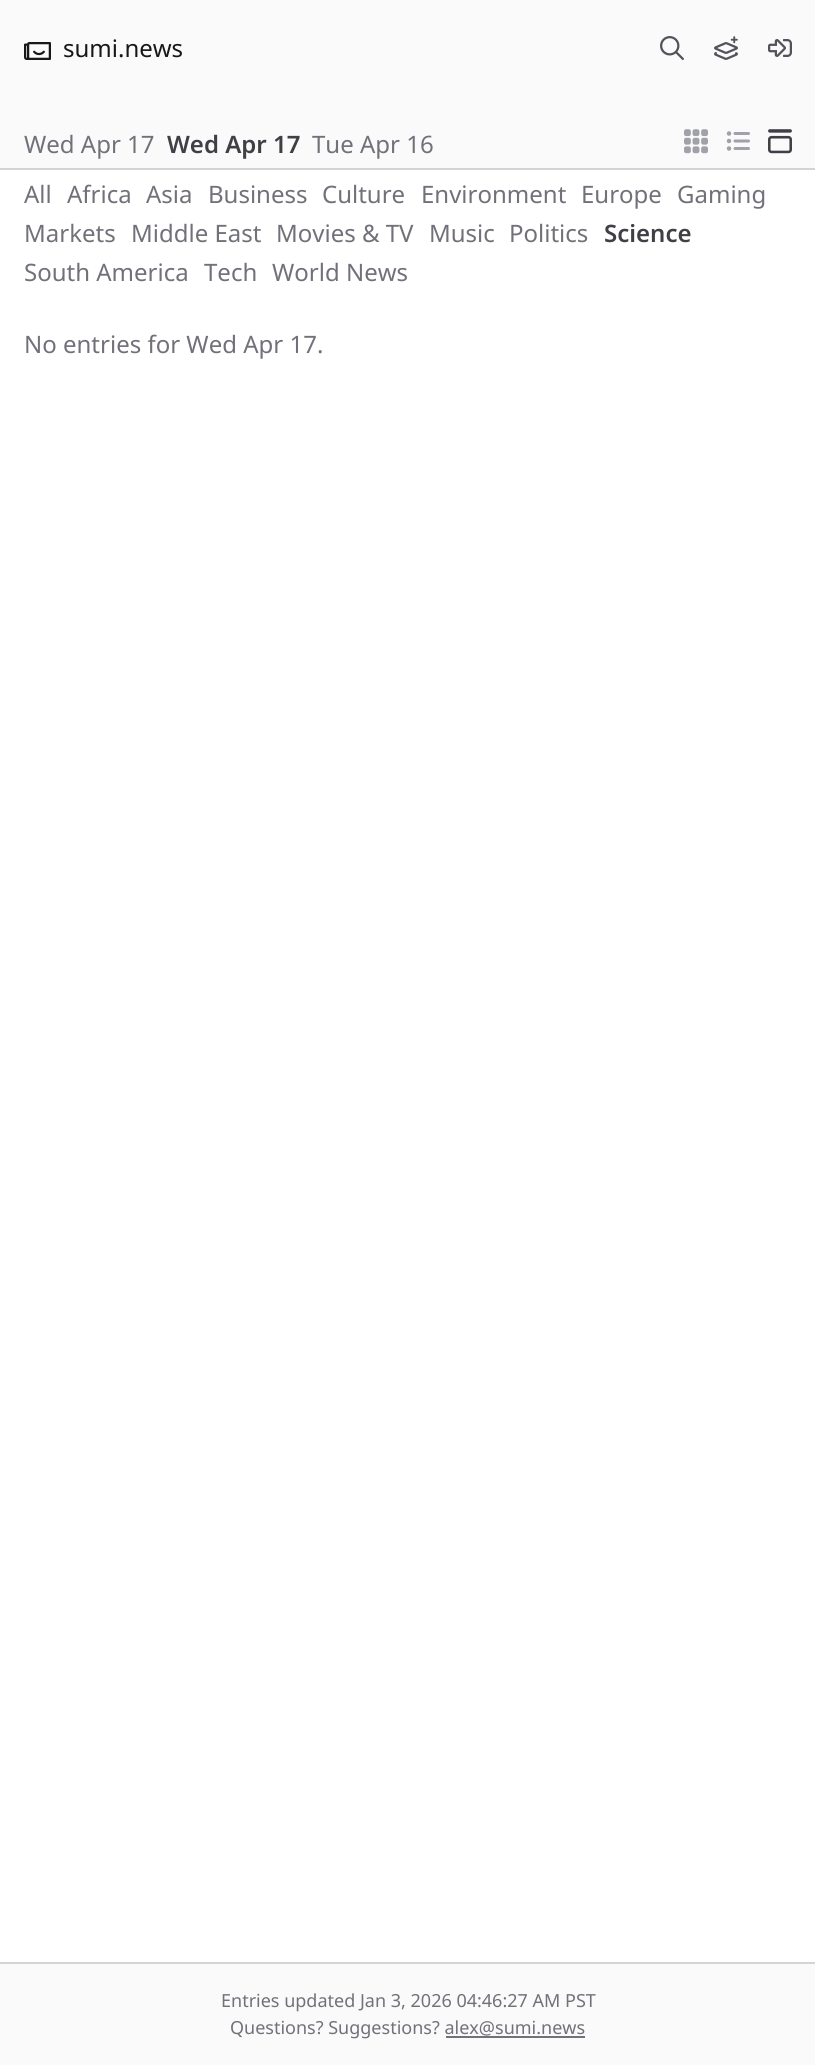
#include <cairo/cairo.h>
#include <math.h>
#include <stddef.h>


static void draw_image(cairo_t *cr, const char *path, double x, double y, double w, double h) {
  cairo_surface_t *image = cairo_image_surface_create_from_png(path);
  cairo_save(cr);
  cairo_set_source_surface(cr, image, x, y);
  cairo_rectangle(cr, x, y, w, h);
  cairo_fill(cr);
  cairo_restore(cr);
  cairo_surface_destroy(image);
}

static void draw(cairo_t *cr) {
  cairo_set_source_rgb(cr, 250 / 255.0, 250 / 255.0, 250 / 255.0);
  cairo_paint(cr);
  draw_image(cr, "images/1.png", 24, 42, 27, 18);
  draw_image(cr, "images/2.png", 660, 36, 24, 24);
  draw_image(cr, "images/3.png", 714, 36, 24, 24);
  draw_image(cr, "images/4.png", 768, 39, 24, 18);
  draw_image(cr, "images/5.png", 684, 129, 24, 25);
  draw_image(cr, "images/6.png", 726, 131, 24, 20);
  draw_image(cr, "images/7.png", 768, 129, 24, 25);
  cairo_set_source_rgb(cr, 1, 1, 1);
  cairo_rectangle(cr, 0, 170, 815, 1792);
  cairo_fill(cr);
  cairo_set_source_rgb(cr, 212 / 255.0, 212 / 255.0, 216 / 255.0);
  cairo_rectangle(cr, 0, 168, 815, 2);
  cairo_fill(cr);
  cairo_rectangle(cr, 0, 1962, 815, 2);
  cairo_fill(cr);
  cairo_set_source_rgb(cr, 113 / 255.0, 113 / 255.0, 122 / 255.0);
  cairo_rectangle(cr, 446, 2036, 139, 2);
  cairo_fill(cr);
  cairo_select_font_face(cr, "Noto Sans", CAIRO_FONT_SLANT_NORMAL, CAIRO_FONT_WEIGHT_NORMAL);
  cairo_set_font_size(cr, 24);
  cairo_set_source_rgb(cr, 24 / 255.0, 24 / 255.0, 27 / 255.0);
  cairo_move_to(cr, 63, 57);
  cairo_show_text(cr, "sumi.news");
  cairo_set_source_rgb(cr, 113 / 255.0, 113 / 255.0, 122 / 255.0);
  cairo_move_to(cr, 24, 153);
  cairo_show_text(cr, "Wed Apr 17");
  cairo_select_font_face(cr, "Noto Sans SemiBold", CAIRO_FONT_SLANT_NORMAL, CAIRO_FONT_WEIGHT_NORMAL);
  cairo_set_source_rgb(cr, 63 / 255.0, 63 / 255.0, 70 / 255.0);
  cairo_move_to(cr, 167, 153);
  cairo_show_text(cr, "Wed Apr 17");
  cairo_select_font_face(cr, "Noto Sans", CAIRO_FONT_SLANT_NORMAL, CAIRO_FONT_WEIGHT_NORMAL);
  cairo_set_source_rgb(cr, 113 / 255.0, 113 / 255.0, 122 / 255.0);
  cairo_move_to(cr, 312, 153);
  cairo_show_text(cr, "Tue Apr 16");
  cairo_move_to(cr, 24, 203);
  cairo_show_text(cr, "All");
  cairo_move_to(cr, 67, 203);
  cairo_show_text(cr, "Africa");
  cairo_move_to(cr, 146, 203);
  cairo_show_text(cr, "Asia");
  cairo_move_to(cr, 208, 203);
  cairo_show_text(cr, "Business");
  cairo_move_to(cr, 322, 203);
  cairo_show_text(cr, "Culture");
  cairo_move_to(cr, 421, 203);
  cairo_show_text(cr, "Environment");
  cairo_move_to(cr, 581, 203);
  cairo_show_text(cr, "Europe");
  cairo_move_to(cr, 677, 203);
  cairo_show_text(cr, "Gaming");
  cairo_move_to(cr, 24, 242);
  cairo_show_text(cr, "Markets");
  cairo_move_to(cr, 131, 242);
  cairo_show_text(cr, "Middle East");
  cairo_move_to(cr, 276, 242);
  cairo_show_text(cr, "Movies & TV");
  cairo_move_to(cr, 429, 242);
  cairo_show_text(cr, "Music");
  cairo_move_to(cr, 509, 242);
  cairo_show_text(cr, "Politics");
  cairo_select_font_face(cr, "Noto Sans SemiBold", CAIRO_FONT_SLANT_NORMAL, CAIRO_FONT_WEIGHT_NORMAL);
  cairo_set_source_rgb(cr, 63 / 255.0, 63 / 255.0, 70 / 255.0);
  cairo_move_to(cr, 604, 242);
  cairo_show_text(cr, "Science");
  cairo_select_font_face(cr, "Noto Sans", CAIRO_FONT_SLANT_NORMAL, CAIRO_FONT_WEIGHT_NORMAL);
  cairo_set_source_rgb(cr, 113 / 255.0, 113 / 255.0, 122 / 255.0);
  cairo_move_to(cr, 24, 281);
  cairo_show_text(cr, "South America");
  cairo_move_to(cr, 204, 281);
  cairo_show_text(cr, "Tech");
  cairo_move_to(cr, 272, 281);
  cairo_show_text(cr, "World News");
  cairo_move_to(cr, 24, 353);
  cairo_show_text(cr, "No entries for Wed Apr 17.");
  cairo_set_font_size(cr, 18);
  cairo_move_to(cr, 221, 2007);
  cairo_show_text(cr, "Entries updated Jan 3, 2026 04:46:27 AM PST");
  cairo_move_to(cr, 230, 2034);
  cairo_show_text(cr, "Questions? Suggestions? alex@sumi.news");
}

int main(void) {
  cairo_surface_t *surface = cairo_image_surface_create(CAIRO_FORMAT_RGB24, 815, 2065);
  cairo_t *cr = cairo_create(surface);
  cairo_font_options_t *options = cairo_font_options_create();
  cairo_font_options_set_hint_metrics(options, CAIRO_HINT_METRICS_OFF);
  cairo_font_options_set_hint_style(options, CAIRO_HINT_STYLE_NONE);
  cairo_set_font_options(cr, options);
  cairo_set_miter_limit(cr, 4);
  draw(cr);
  cairo_surface_write_to_png(surface, "out.png");
  cairo_font_options_destroy(options);
  cairo_destroy(cr);
  cairo_surface_destroy(surface);
  return 0;
}
